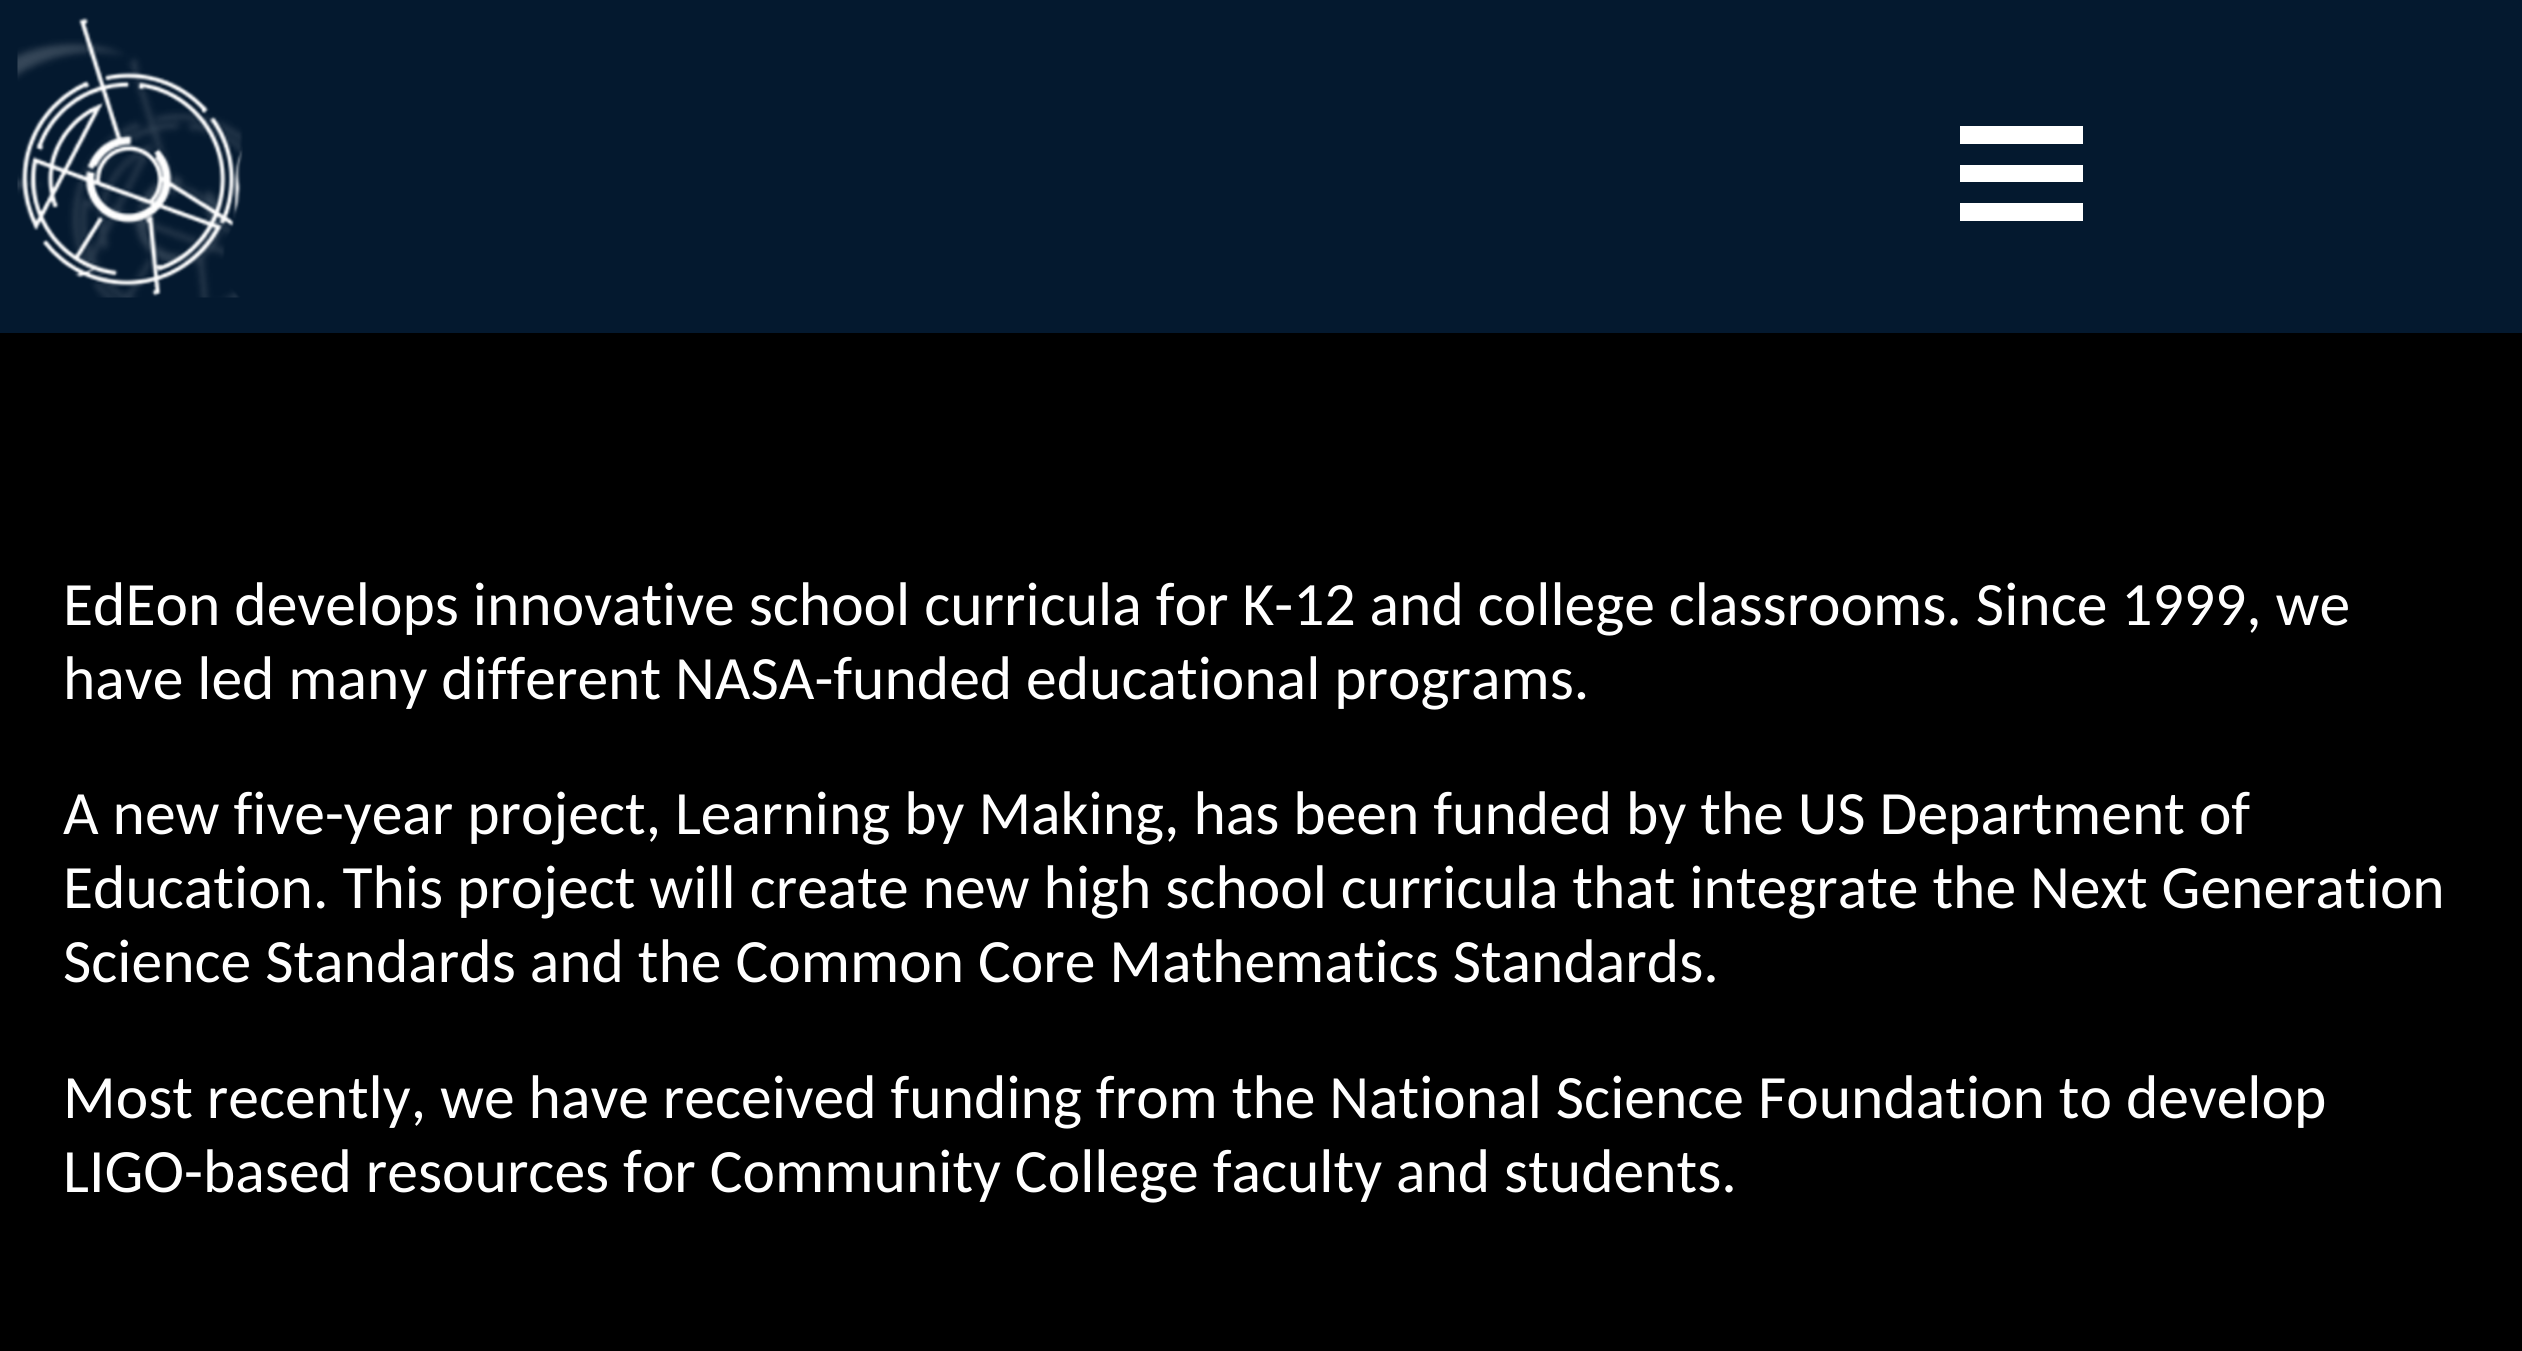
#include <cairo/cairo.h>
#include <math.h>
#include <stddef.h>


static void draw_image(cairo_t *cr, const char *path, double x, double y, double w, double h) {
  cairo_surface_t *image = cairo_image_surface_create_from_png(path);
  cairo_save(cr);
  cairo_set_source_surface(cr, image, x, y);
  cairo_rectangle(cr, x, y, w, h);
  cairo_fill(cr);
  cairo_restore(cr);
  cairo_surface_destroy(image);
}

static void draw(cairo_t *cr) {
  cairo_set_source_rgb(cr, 0, 0, 0);
  cairo_paint(cr);
  cairo_set_source_rgb(cr, 4 / 255.0, 25 / 255.0, 47 / 255.0);
  cairo_rectangle(cr, 0, 0, 2522, 333);
  cairo_fill(cr);
  draw_image(cr, "images/1.png", 17, 17, 226, 281);
  cairo_set_source_rgb(cr, 1, 1, 1);
  cairo_rectangle(cr, 1960, 126, 123, 18);
  cairo_fill(cr);
  cairo_rectangle(cr, 1960, 165, 123, 17);
  cairo_fill(cr);
  cairo_rectangle(cr, 1960, 203, 123, 18);
  cairo_fill(cr);
  cairo_select_font_face(cr, "Carlito", CAIRO_FONT_SLANT_NORMAL, CAIRO_FONT_WEIGHT_NORMAL);
  cairo_set_font_size(cr, 61.6);
  cairo_move_to(cr, 63, 625);
  cairo_show_text(cr, "EdEon develops innovative school curricula for K-12 and college classrooms. Since 1999, we");
  cairo_move_to(cr, 63, 699);
  cairo_show_text(cr, "have led many different NASA-funded educational programs.");
  cairo_move_to(cr, 63, 834);
  cairo_show_text(cr, "A new five-year project, Learning by Making, has been funded by the US Department of");
  cairo_move_to(cr, 63, 908);
  cairo_show_text(cr, "Education. This project will create new high school curricula that integrate the Next Generation");
  cairo_move_to(cr, 63, 982);
  cairo_show_text(cr, "Science Standards and the Common Core Mathematics Standards.");
  cairo_move_to(cr, 63, 1118);
  cairo_show_text(cr, "Most recently, we have received funding from the National Science Foundation to develop");
  cairo_move_to(cr, 63, 1192);
  cairo_show_text(cr, "LIGO-based resources for Community College faculty and students.");
}

int main(void) {
  cairo_surface_t *surface = cairo_image_surface_create(CAIRO_FORMAT_RGB24, 2522, 1351);
  cairo_t *cr = cairo_create(surface);
  cairo_font_options_t *options = cairo_font_options_create();
  cairo_font_options_set_hint_metrics(options, CAIRO_HINT_METRICS_OFF);
  cairo_font_options_set_hint_style(options, CAIRO_HINT_STYLE_NONE);
  cairo_set_font_options(cr, options);
  cairo_set_miter_limit(cr, 4);
  draw(cr);
  cairo_surface_write_to_png(surface, "out.png");
  cairo_font_options_destroy(options);
  cairo_destroy(cr);
  cairo_surface_destroy(surface);
  return 0;
}
